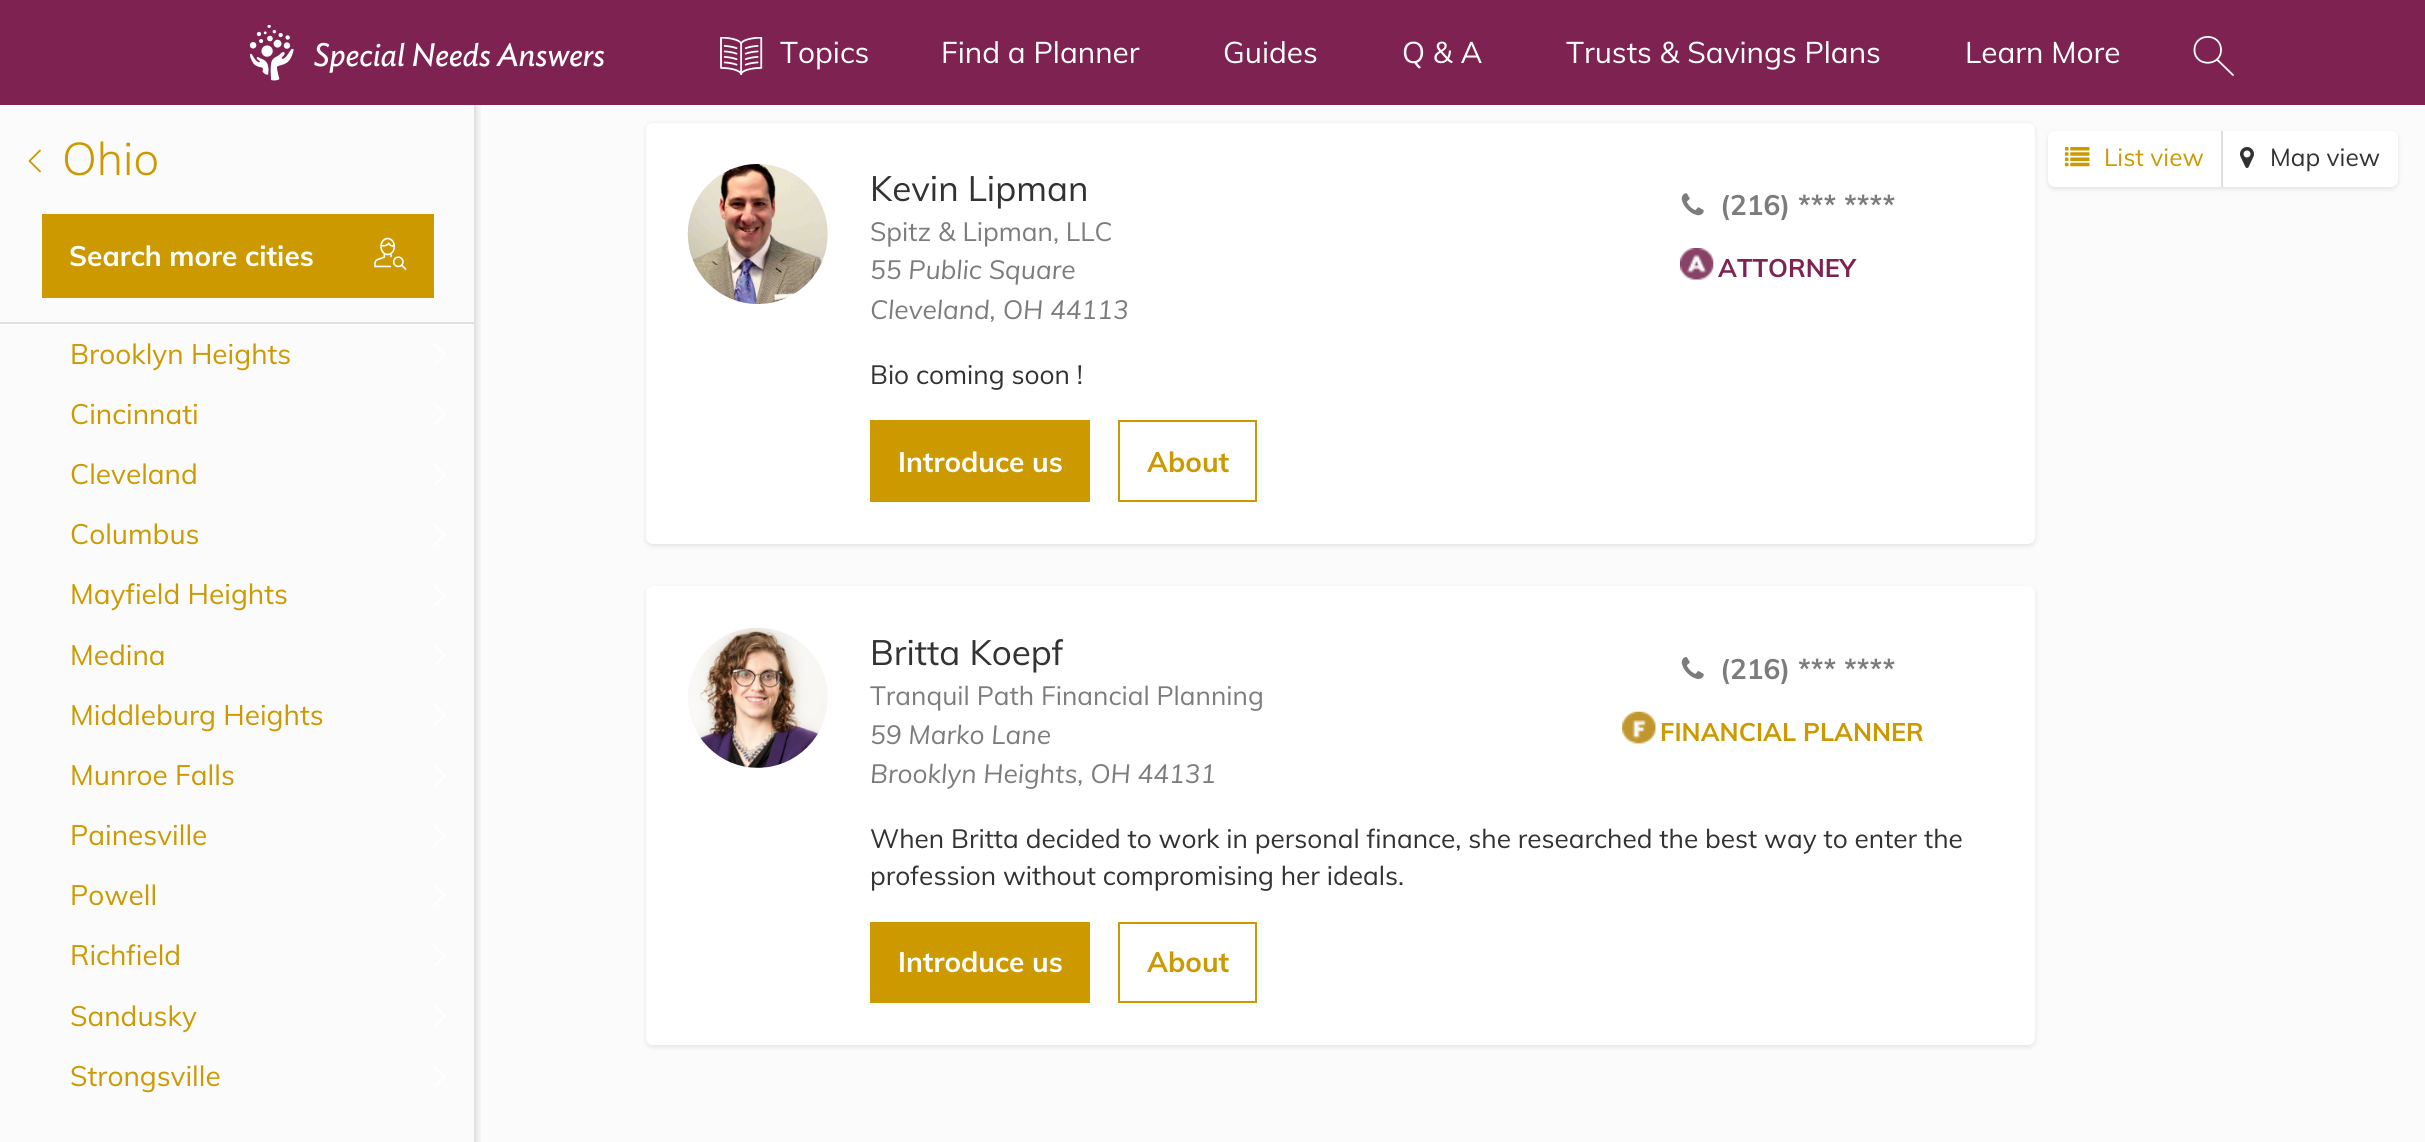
#include <cairo/cairo.h>
#include <math.h>
#include <stddef.h>


static void rounded_rect(cairo_t *cr, double x, double y, double w, double h, double r) {
  cairo_new_sub_path(cr);
  cairo_arc(cr, x + w - r, y + h - r, r, 0, M_PI / 2);
  cairo_arc(cr, x + r, y + h - r, r, M_PI / 2, M_PI);
  cairo_arc(cr, x + r, y + r, r, M_PI, 1.5 * M_PI);
  cairo_arc(cr, x + w - r, y + r, r, 1.5 * M_PI, 2 * M_PI);
  cairo_close_path(cr);
}

static void draw_shadow(cairo_t *cr, double x, double y, double w, double h, double r, double blur, double alpha) {
  cairo_push_group_with_content(cr, CAIRO_CONTENT_ALPHA);
  cairo_set_operator(cr, CAIRO_OPERATOR_SOURCE);
  for (int i = 15; i >= -15 && fmin(w, h) + blur * i / 3 > 0; i -= 2) {
    double e = blur * i / 6;
    cairo_set_source_rgba(cr, 0, 0, 0, alpha * erfc((i - 1) / 8.5) / 2);
    rounded_rect(cr, x - e, y - e, w + 2 * e, h + 2 * e, fmax(0, fmin(r + e + blur * .6, fmin(w, h) / 2 + e)));
    cairo_fill(cr);
  }
  cairo_pattern_t *soft = cairo_pop_group(cr);
  cairo_mask(cr, soft);
  cairo_pattern_destroy(soft);
}

static void draw_image(cairo_t *cr, const char *path, double x, double y, double w, double h) {
  cairo_surface_t *image = cairo_image_surface_create_from_png(path);
  cairo_save(cr);
  cairo_set_source_surface(cr, image, x, y);
  cairo_rectangle(cr, x, y, w, h);
  cairo_fill(cr);
  cairo_restore(cr);
  cairo_surface_destroy(image);
}

static void draw(cairo_t *cr) {
  cairo_set_source_rgb(cr, 251 / 255.0, 251 / 255.0, 251 / 255.0);
  cairo_paint(cr);
  cairo_save(cr);
  cairo_rectangle(cr, 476, 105, 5, 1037);
  cairo_clip(cr);
  cairo_set_source_rgb(cr, 0, 0, 0);
  draw_shadow(cr, 2, 105, 476, 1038, 0, 3.5, 0.1);
  cairo_restore(cr);
  cairo_set_source_rgb(cr, 126 / 255.0, 34 / 255.0, 81 / 255.0);
  cairo_rectangle(cr, 0, 0, 2425, 105);
  cairo_fill(cr);
  draw_image(cr, "images/1.png", 249, 25, 355, 56);
  draw_image(cr, "images/2.png", 720, 37, 43, 38);
  cairo_new_path(cr);
  cairo_move_to(cr, 2221, 50);
  cairo_curve_to(cr, 2221, 67, 2194.5, 67, 2194.5, 50);
  cairo_curve_to(cr, 2194.5, 32.5, 2221, 32.5, 2221, 50);
  cairo_close_path(cr);
  cairo_set_source_rgb(cr, 1, 1, 1);
  cairo_set_line_width(cr, 1.8);
  cairo_set_line_join(cr, CAIRO_LINE_JOIN_ROUND);
  cairo_stroke(cr);
  cairo_new_path(cr);
  cairo_move_to(cr, 2217, 59.5);
  cairo_line_to(cr, 2233, 75);
  cairo_set_line_cap(cr, CAIRO_LINE_CAP_ROUND);
  cairo_stroke(cr);
  cairo_set_source_rgb(cr, 226 / 255.0, 226 / 255.0, 226 / 255.0);
  cairo_rectangle(cr, 474, 105, 2, 1037);
  cairo_fill(cr);
  cairo_new_path(cr);
  cairo_move_to(cr, 40, 150.5);
  cairo_line_to(cr, 29.5, 161);
  cairo_line_to(cr, 40, 171.5);
  cairo_set_source_rgb(cr, 204 / 255.0, 153 / 255.0, 0);
  cairo_stroke(cr);
  cairo_rectangle(cr, 42, 214, 392, 84);
  cairo_fill(cr);
  draw_image(cr, "images/3.png", 374, 237, 33, 33);
  cairo_set_source_rgb(cr, 224 / 255.0, 224 / 255.0, 224 / 255.0);
  cairo_rectangle(cr, 0, 322, 474, 2);
  cairo_fill(cr);
  cairo_save(cr);
  cairo_rectangle(cr, 432, 343, 14, 21);
  cairo_clip(cr);
  cairo_new_path(cr);
  cairo_move_to(cr, 434, 344);
  cairo_line_to(cr, 444.5, 354.5);
  cairo_line_to(cr, 434, 365);
  cairo_set_source_rgb(cr, 1, 1, 1);
  cairo_stroke(cr);
  cairo_restore(cr);
  cairo_save(cr);
  cairo_rectangle(cr, 432, 403, 14, 22);
  cairo_clip(cr);
  cairo_new_path(cr);
  cairo_move_to(cr, 434, 403.5);
  cairo_line_to(cr, 444.5, 414);
  cairo_line_to(cr, 434, 424.5);
  cairo_set_source_rgb(cr, 1, 1, 1);
  cairo_stroke(cr);
  cairo_restore(cr);
  cairo_save(cr);
  cairo_rectangle(cr, 432, 464, 14, 21);
  cairo_clip(cr);
  cairo_new_path(cr);
  cairo_move_to(cr, 434, 464.5);
  cairo_line_to(cr, 444.5, 475);
  cairo_line_to(cr, 434, 485.5);
  cairo_set_source_rgb(cr, 1, 1, 1);
  cairo_stroke(cr);
  cairo_restore(cr);
  cairo_new_path(cr);
  cairo_move_to(cr, 434, 524);
  cairo_line_to(cr, 444.5, 534.5);
  cairo_line_to(cr, 434, 545);
  cairo_set_source_rgb(cr, 1, 1, 1);
  cairo_stroke(cr);
  cairo_save(cr);
  cairo_rectangle(cr, 432, 585, 14, 21);
  cairo_clip(cr);
  cairo_new_path(cr);
  cairo_move_to(cr, 434, 585.5);
  cairo_line_to(cr, 444.5, 596);
  cairo_line_to(cr, 434, 606.5);
  cairo_stroke(cr);
  cairo_restore(cr);
  cairo_save(cr);
  cairo_rectangle(cr, 432, 644, 14, 21);
  cairo_clip(cr);
  cairo_new_path(cr);
  cairo_move_to(cr, 434, 645);
  cairo_line_to(cr, 444.5, 655.5);
  cairo_line_to(cr, 434, 666);
  cairo_stroke(cr);
  cairo_restore(cr);
  cairo_save(cr);
  cairo_rectangle(cr, 432, 704, 14, 22);
  cairo_clip(cr);
  cairo_new_path(cr);
  cairo_move_to(cr, 434, 704.5);
  cairo_line_to(cr, 444.5, 715);
  cairo_line_to(cr, 434, 725.5);
  cairo_stroke(cr);
  cairo_restore(cr);
  cairo_save(cr);
  cairo_rectangle(cr, 432, 765, 14, 21);
  cairo_clip(cr);
  cairo_new_path(cr);
  cairo_move_to(cr, 434, 765.5);
  cairo_line_to(cr, 444.5, 776);
  cairo_line_to(cr, 434, 786.5);
  cairo_stroke(cr);
  cairo_restore(cr);
  cairo_new_path(cr);
  cairo_move_to(cr, 434, 825);
  cairo_line_to(cr, 444.5, 835.5);
  cairo_line_to(cr, 434, 846);
  cairo_stroke(cr);
  cairo_new_path(cr);
  cairo_move_to(cr, 434, 884.5);
  cairo_line_to(cr, 444.5, 895);
  cairo_line_to(cr, 434, 905.5);
  cairo_stroke(cr);
  cairo_save(cr);
  cairo_rectangle(cr, 432, 945, 14, 21);
  cairo_clip(cr);
  cairo_new_path(cr);
  cairo_move_to(cr, 434, 946);
  cairo_line_to(cr, 444.5, 956.5);
  cairo_line_to(cr, 434, 967);
  cairo_stroke(cr);
  cairo_restore(cr);
  cairo_save(cr);
  cairo_rectangle(cr, 432, 1005, 14, 22);
  cairo_clip(cr);
  cairo_new_path(cr);
  cairo_move_to(cr, 434, 1005.5);
  cairo_line_to(cr, 444.5, 1016);
  cairo_line_to(cr, 434, 1026.5);
  cairo_stroke(cr);
  cairo_restore(cr);
  cairo_save(cr);
  cairo_rectangle(cr, 432, 1066, 14, 21);
  cairo_clip(cr);
  cairo_new_path(cr);
  cairo_move_to(cr, 434, 1066.5);
  cairo_line_to(cr, 444.5, 1077);
  cairo_line_to(cr, 434, 1087.5);
  cairo_stroke(cr);
  cairo_restore(cr);
  cairo_set_source_rgb(cr, 0, 0, 0);
  draw_shadow(cr, 2048, 133, 350, 56, 7, 2.5, 0.1);
  cairo_set_source_rgb(cr, 1, 1, 1);
  rounded_rect(cr, 2048, 131, 350, 56, 7);
  cairo_fill(cr);
  cairo_set_source_rgb(cr, 224 / 255.0, 224 / 255.0, 224 / 255.0);
  cairo_rectangle(cr, 2221, 131, 2, 56);
  cairo_fill(cr);
  draw_image(cr, "images/4.png", 2065, 147, 25, 20);
  draw_image(cr, "images/5.png", 2240, 147, 14, 21);
  cairo_set_source_rgb(cr, 0, 0, 0);
  draw_shadow(cr, 646, 124, 1389, 422, 7, 2.5, 0.1);
  cairo_set_source_rgb(cr, 1, 1, 1);
  rounded_rect(cr, 646, 123, 1389, 421, 7);
  cairo_fill(cr);
  draw_image(cr, "images/6.png", 687, 164, 141, 140);
  draw_image(cr, "images/7.png", 1681, 193, 23, 23);
  draw_image(cr, "images/8.png", 1680, 248, 34, 32);
  cairo_set_source_rgb(cr, 204 / 255.0, 153 / 255.0, 0);
  cairo_rectangle(cr, 870, 420, 220, 82);
  cairo_fill(cr);
  cairo_rectangle(cr, 1119, 421, 137, 80);
  cairo_set_line_width(cr, 2);
  cairo_set_line_cap(cr, CAIRO_LINE_CAP_BUTT);
  cairo_set_line_join(cr, CAIRO_LINE_JOIN_MITER);
  cairo_stroke(cr);
  cairo_set_source_rgb(cr, 0, 0, 0);
  draw_shadow(cr, 646, 588, 1389, 459, 7, 2.5, 0.1);
  cairo_set_source_rgb(cr, 1, 1, 1);
  rounded_rect(cr, 646, 586, 1389, 459, 7);
  cairo_fill(cr);
  draw_image(cr, "images/9.png", 688, 627, 140, 141);
  draw_image(cr, "images/10.png", 1681, 657, 23, 22);
  draw_image(cr, "images/11.png", 1622, 711, 34, 33);
  cairo_set_source_rgb(cr, 204 / 255.0, 153 / 255.0, 0);
  cairo_rectangle(cr, 870, 922, 220, 81);
  cairo_fill(cr);
  cairo_rectangle(cr, 1119, 923, 137, 79);
  cairo_stroke(cr);
  cairo_select_font_face(cr, "Muli", CAIRO_FONT_SLANT_NORMAL, CAIRO_FONT_WEIGHT_NORMAL);
  cairo_set_font_size(cr, 29.75);
  cairo_set_source_rgb(cr, 1, 1, 1);
  cairo_move_to(cr, 780, 63);
  cairo_show_text(cr, "Topics");
  cairo_move_to(cr, 941, 63);
  cairo_show_text(cr, "Find a Planner");
  cairo_move_to(cr, 1223, 63);
  cairo_show_text(cr, "Guides");
  cairo_move_to(cr, 1402, 63);
  cairo_show_text(cr, "Q & A");
  cairo_move_to(cr, 1566, 63);
  cairo_show_text(cr, "Trusts & Savings Plans");
  cairo_move_to(cr, 1965, 63);
  cairo_show_text(cr, "Learn More");
  cairo_select_font_face(cr, "Muli Light", CAIRO_FONT_SLANT_NORMAL, CAIRO_FONT_WEIGHT_NORMAL);
  cairo_set_font_size(cr, 45.5);
  cairo_set_source_rgb(cr, 204 / 255.0, 153 / 255.0, 0);
  cairo_move_to(cr, 62, 175);
  cairo_show_text(cr, "Ohio");
  cairo_select_font_face(cr, "Muli", CAIRO_FONT_SLANT_NORMAL, CAIRO_FONT_WEIGHT_BOLD);
  cairo_set_font_size(cr, 28);
  cairo_set_source_rgb(cr, 1, 1, 1);
  cairo_move_to(cr, 69, 266);
  cairo_show_text(cr, "Search more cities");
  cairo_select_font_face(cr, "Muli", CAIRO_FONT_SLANT_NORMAL, CAIRO_FONT_WEIGHT_NORMAL);
  cairo_set_source_rgb(cr, 204 / 255.0, 153 / 255.0, 0);
  cairo_move_to(cr, 70, 364);
  cairo_show_text(cr, "Brooklyn Heights");
  cairo_move_to(cr, 70, 424);
  cairo_show_text(cr, "Cincinnati");
  cairo_move_to(cr, 70, 484);
  cairo_show_text(cr, "Cleveland");
  cairo_move_to(cr, 70, 544);
  cairo_show_text(cr, "Columbus");
  cairo_move_to(cr, 70, 604);
  cairo_show_text(cr, "Mayfield Heights");
  cairo_move_to(cr, 70, 665);
  cairo_show_text(cr, "Medina");
  cairo_move_to(cr, 70, 725);
  cairo_show_text(cr, "Middleburg Heights");
  cairo_move_to(cr, 70, 785);
  cairo_show_text(cr, "Munroe Falls");
  cairo_move_to(cr, 70, 845);
  cairo_show_text(cr, "Painesville");
  cairo_move_to(cr, 70, 905);
  cairo_show_text(cr, "Powell");
  cairo_move_to(cr, 70, 965);
  cairo_show_text(cr, "Richfield");
  cairo_move_to(cr, 70, 1026);
  cairo_show_text(cr, "Sandusky");
  cairo_move_to(cr, 70, 1086);
  cairo_show_text(cr, "Strongsville");
  cairo_set_font_size(cr, 24.5);
  cairo_move_to(cr, 2104, 166);
  cairo_show_text(cr, "List view");
  cairo_set_source_rgb(cr, 50 / 255.0, 50 / 255.0, 50 / 255.0);
  cairo_move_to(cr, 2270, 166);
  cairo_show_text(cr, "Map view");
  cairo_set_font_size(cr, 35);
  cairo_move_to(cr, 870, 201);
  cairo_show_text(cr, "Kevin Lipman");
  cairo_select_font_face(cr, "Muli", CAIRO_FONT_SLANT_NORMAL, CAIRO_FONT_WEIGHT_BOLD);
  cairo_set_font_size(cr, 28);
  cairo_set_source_rgb(cr, 124 / 255.0, 124 / 255.0, 124 / 255.0);
  cairo_move_to(cr, 1720, 215);
  cairo_show_text(cr, "(216) *** ****");
  cairo_set_font_size(cr, 25.25);
  cairo_set_source_rgb(cr, 126 / 255.0, 34 / 255.0, 81 / 255.0);
  cairo_move_to(cr, 1718, 277);
  cairo_show_text(cr, "ATTORNEY");
  cairo_select_font_face(cr, "Muli", CAIRO_FONT_SLANT_NORMAL, CAIRO_FONT_WEIGHT_NORMAL);
  cairo_set_font_size(cr, 26.25);
  cairo_set_source_rgb(cr, 124 / 255.0, 124 / 255.0, 124 / 255.0);
  cairo_move_to(cr, 870, 241);
  cairo_show_text(cr, "Spitz & Lipman, LLC");
  cairo_select_font_face(cr, "Muli", CAIRO_FONT_SLANT_ITALIC, CAIRO_FONT_WEIGHT_NORMAL);
  cairo_move_to(cr, 870, 279);
  cairo_show_text(cr, "55 Public Square");
  cairo_move_to(cr, 870, 319);
  cairo_show_text(cr, "Cleveland, OH 44113");
  cairo_select_font_face(cr, "Muli", CAIRO_FONT_SLANT_NORMAL, CAIRO_FONT_WEIGHT_NORMAL);
  cairo_set_source_rgb(cr, 50 / 255.0, 50 / 255.0, 50 / 255.0);
  cairo_move_to(cr, 870, 384);
  cairo_show_text(cr, "Bio coming soon !");
  cairo_select_font_face(cr, "Muli", CAIRO_FONT_SLANT_NORMAL, CAIRO_FONT_WEIGHT_BOLD);
  cairo_set_font_size(cr, 28);
  cairo_set_source_rgb(cr, 1, 1, 1);
  cairo_move_to(cr, 898, 472);
  cairo_show_text(cr, "Introduce us");
  cairo_set_source_rgb(cr, 204 / 255.0, 153 / 255.0, 0);
  cairo_move_to(cr, 1147, 472);
  cairo_show_text(cr, "About");
  cairo_select_font_face(cr, "Muli", CAIRO_FONT_SLANT_NORMAL, CAIRO_FONT_WEIGHT_NORMAL);
  cairo_set_font_size(cr, 35);
  cairo_set_source_rgb(cr, 50 / 255.0, 50 / 255.0, 50 / 255.0);
  cairo_move_to(cr, 870, 665);
  cairo_show_text(cr, "Britta Koepf");
  cairo_select_font_face(cr, "Muli", CAIRO_FONT_SLANT_NORMAL, CAIRO_FONT_WEIGHT_BOLD);
  cairo_set_font_size(cr, 28);
  cairo_set_source_rgb(cr, 124 / 255.0, 124 / 255.0, 124 / 255.0);
  cairo_move_to(cr, 1720, 679);
  cairo_show_text(cr, "(216) *** ****");
  cairo_set_font_size(cr, 25.25);
  cairo_set_source_rgb(cr, 204 / 255.0, 153 / 255.0, 0);
  cairo_move_to(cr, 1660, 741);
  cairo_show_text(cr, "FINANCIAL PLANNER");
  cairo_select_font_face(cr, "Muli", CAIRO_FONT_SLANT_NORMAL, CAIRO_FONT_WEIGHT_NORMAL);
  cairo_set_font_size(cr, 26.25);
  cairo_set_source_rgb(cr, 124 / 255.0, 124 / 255.0, 124 / 255.0);
  cairo_move_to(cr, 870, 705);
  cairo_show_text(cr, "Tranquil Path Financial Planning");
  cairo_select_font_face(cr, "Muli", CAIRO_FONT_SLANT_ITALIC, CAIRO_FONT_WEIGHT_NORMAL);
  cairo_move_to(cr, 870, 744);
  cairo_show_text(cr, "59 Marko Lane");
  cairo_move_to(cr, 870, 783);
  cairo_show_text(cr, "Brooklyn Heights, OH 44131");
  cairo_select_font_face(cr, "Muli", CAIRO_FONT_SLANT_NORMAL, CAIRO_FONT_WEIGHT_NORMAL);
  cairo_set_source_rgb(cr, 50 / 255.0, 50 / 255.0, 50 / 255.0);
  cairo_move_to(cr, 870, 848);
  cairo_show_text(cr, "When Britta decided to work in personal finance, she researched the best way to enter the");
  cairo_move_to(cr, 870, 885);
  cairo_show_text(cr, "profession without compromising her ideals.");
  cairo_select_font_face(cr, "Muli", CAIRO_FONT_SLANT_NORMAL, CAIRO_FONT_WEIGHT_BOLD);
  cairo_set_font_size(cr, 28);
  cairo_set_source_rgb(cr, 1, 1, 1);
  cairo_move_to(cr, 898, 972);
  cairo_show_text(cr, "Introduce us");
  cairo_set_source_rgb(cr, 204 / 255.0, 153 / 255.0, 0);
  cairo_move_to(cr, 1147, 972);
  cairo_show_text(cr, "About");
}

int main(void) {
  cairo_surface_t *surface = cairo_image_surface_create(CAIRO_FORMAT_RGB24, 2425, 1142);
  cairo_t *cr = cairo_create(surface);
  cairo_font_options_t *options = cairo_font_options_create();
  cairo_font_options_set_hint_metrics(options, CAIRO_HINT_METRICS_OFF);
  cairo_font_options_set_hint_style(options, CAIRO_HINT_STYLE_NONE);
  cairo_set_font_options(cr, options);
  cairo_set_miter_limit(cr, 4);
  draw(cr);
  cairo_surface_write_to_png(surface, "out.png");
  cairo_font_options_destroy(options);
  cairo_destroy(cr);
  cairo_surface_destroy(surface);
  return 0;
}
